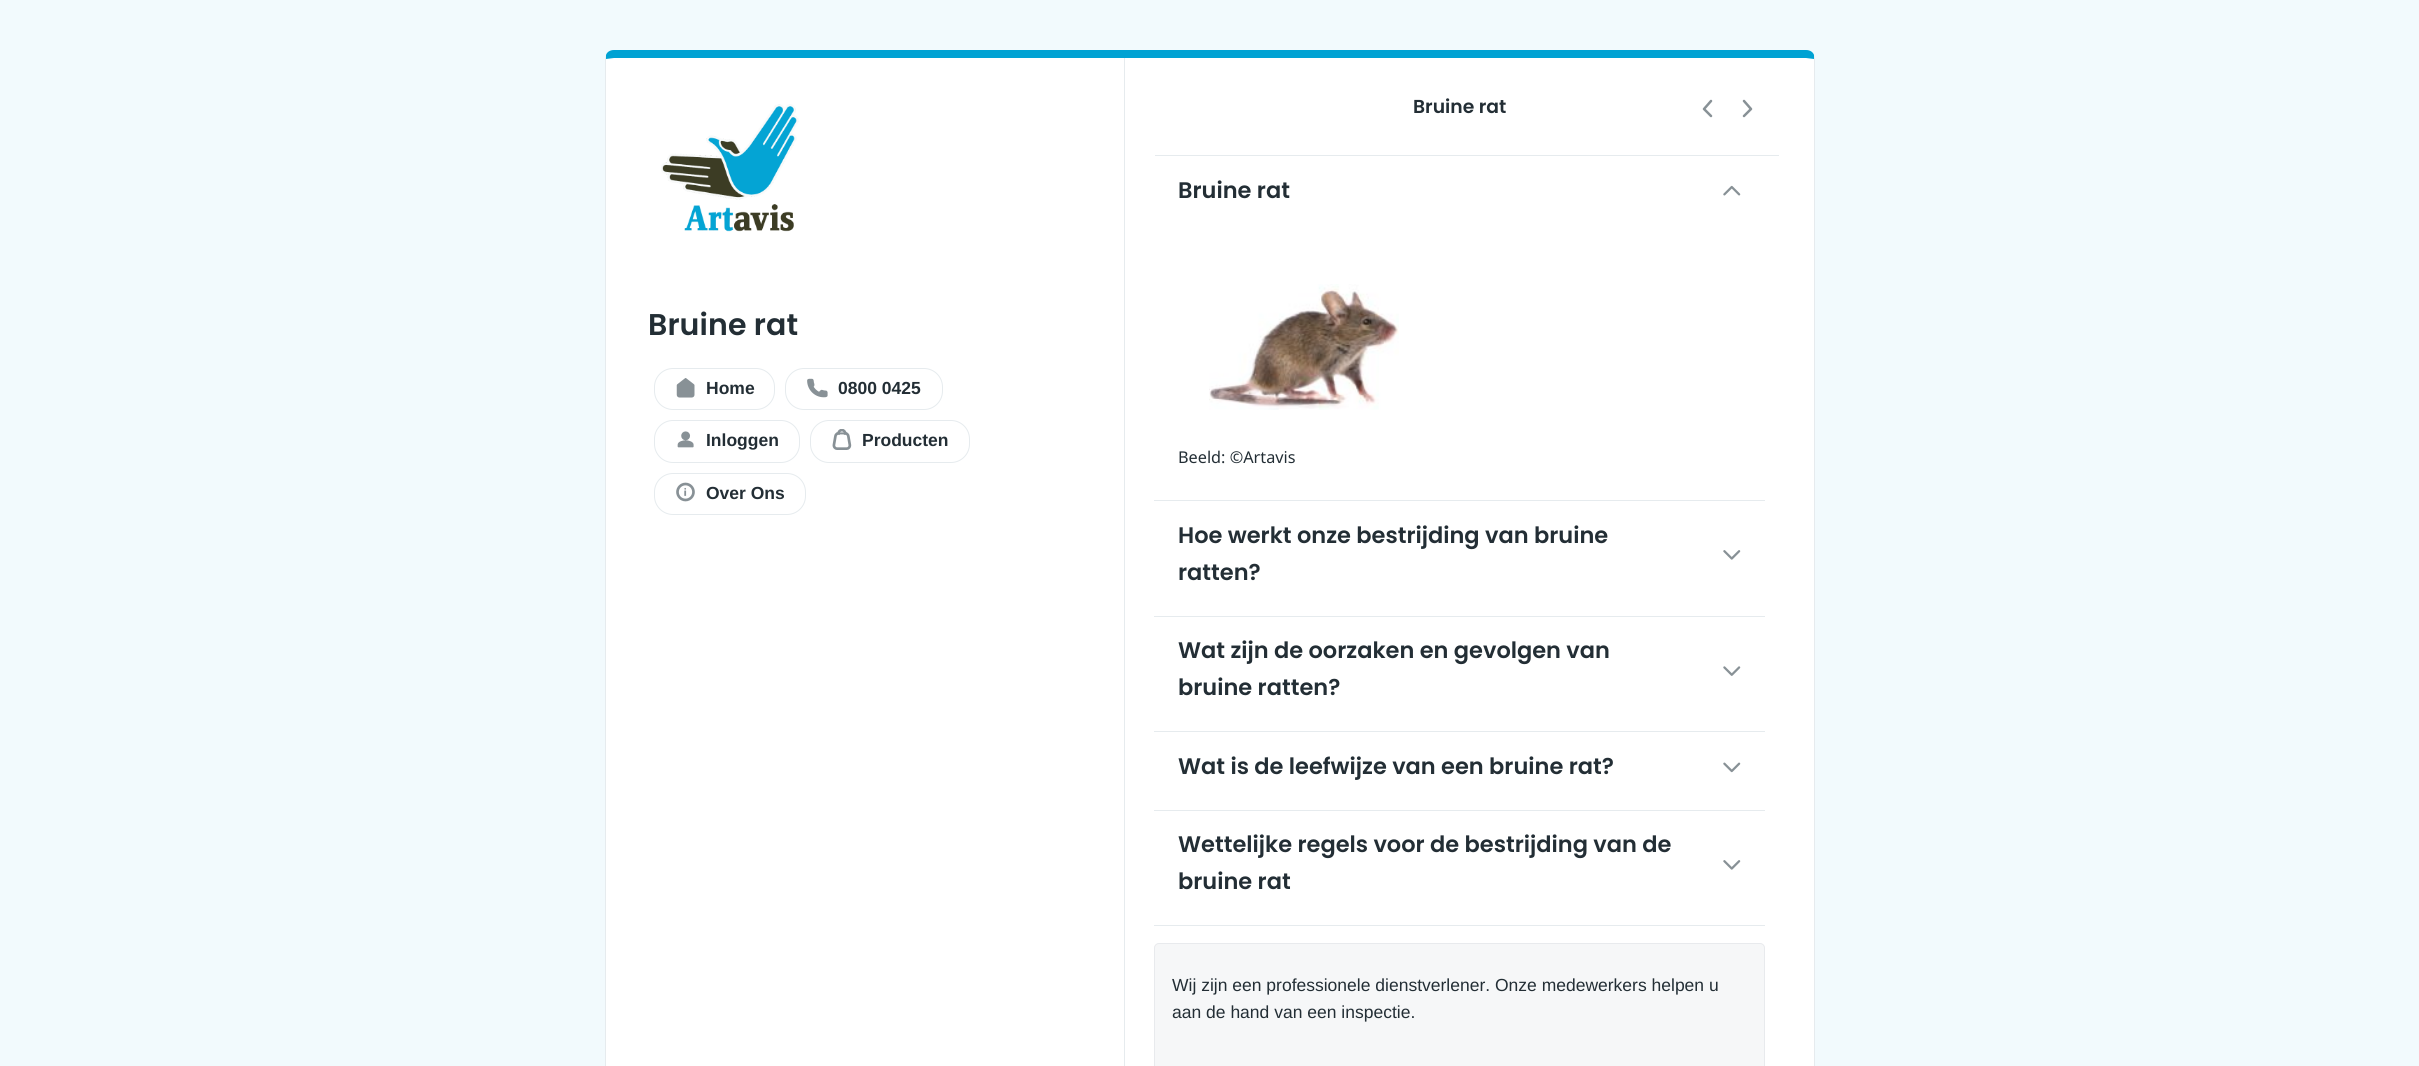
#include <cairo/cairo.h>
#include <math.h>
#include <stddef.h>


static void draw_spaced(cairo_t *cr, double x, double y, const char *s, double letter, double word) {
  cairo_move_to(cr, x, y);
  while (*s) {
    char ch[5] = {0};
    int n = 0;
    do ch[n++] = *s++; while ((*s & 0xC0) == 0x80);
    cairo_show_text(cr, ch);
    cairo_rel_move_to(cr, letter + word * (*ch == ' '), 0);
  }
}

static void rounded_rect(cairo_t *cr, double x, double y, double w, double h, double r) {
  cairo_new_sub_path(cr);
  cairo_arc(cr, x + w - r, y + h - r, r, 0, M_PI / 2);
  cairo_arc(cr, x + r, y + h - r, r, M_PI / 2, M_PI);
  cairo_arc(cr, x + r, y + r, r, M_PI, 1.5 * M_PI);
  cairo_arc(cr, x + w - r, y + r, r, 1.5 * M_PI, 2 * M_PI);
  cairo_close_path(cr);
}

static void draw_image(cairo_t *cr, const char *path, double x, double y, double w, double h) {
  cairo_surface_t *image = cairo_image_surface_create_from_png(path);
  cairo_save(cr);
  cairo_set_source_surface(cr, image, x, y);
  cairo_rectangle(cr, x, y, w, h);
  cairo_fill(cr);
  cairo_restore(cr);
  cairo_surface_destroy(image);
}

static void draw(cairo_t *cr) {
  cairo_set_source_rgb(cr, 242 / 255.0, 250 / 255.0, 253 / 255.0);
  cairo_paint(cr);
  cairo_set_source_rgb(cr, 1, 1, 1);
  cairo_new_path(cr);
  cairo_move_to(cr, 614, 58);
  cairo_line_to(cr, 1806, 58);
  cairo_curve_to(cr, 1810, 58, 1814, 58, 1814, 59);
  cairo_line_to(cr, 1814, 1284);
  cairo_curve_to(cr, 1814, 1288, 1810, 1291, 1806, 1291);
  cairo_line_to(cr, 614, 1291);
  cairo_curve_to(cr, 610, 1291, 606, 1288, 606, 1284);
  cairo_line_to(cr, 606, 59);
  cairo_curve_to(cr, 606, 58, 610, 58, 614, 58);
  cairo_close_path(cr);
  cairo_fill(cr);
  cairo_set_source_rgb(cr, 0, 162 / 255.0, 211 / 255.0);
  cairo_new_path(cr);
  cairo_move_to(cr, 614, 50);
  cairo_curve_to(cr, 610, 50, 607, 52, 606, 55);
  cairo_line_to(cr, 606, 59);
  cairo_line_to(cr, 614, 58);
  cairo_line_to(cr, 1806, 58);
  cairo_line_to(cr, 1814, 59);
  cairo_line_to(cr, 1814, 55);
  cairo_curve_to(cr, 1813, 52, 1810, 50, 1806, 50);
  cairo_close_path(cr);
  cairo_fill(cr);
  cairo_set_source_rgb(cr, 230 / 255.0, 235 / 255.0, 238 / 255.0);
  cairo_new_path(cr);
  cairo_move_to(cr, 1815, 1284);
  cairo_line_to(cr, 1815, 59);
  cairo_line_to(cr, 1814, 55);
  cairo_line_to(cr, 1814, 59);
  cairo_line_to(cr, 1814, 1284);
  cairo_curve_to(cr, 1814, 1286, 1813, 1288, 1812, 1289);
  cairo_line_to(cr, 1812, 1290);
  cairo_curve_to(cr, 1814, 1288, 1815, 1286, 1815, 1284);
  cairo_close_path(cr);
  cairo_fill(cr);
  cairo_new_path(cr);
  cairo_move_to(cr, 605, 59);
  cairo_line_to(cr, 605, 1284);
  cairo_curve_to(cr, 605, 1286, 606, 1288, 608, 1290);
  cairo_line_to(cr, 608, 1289);
  cairo_curve_to(cr, 607, 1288, 606, 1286, 606, 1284);
  cairo_line_to(cr, 606, 59);
  cairo_line_to(cr, 606, 55);
  cairo_close_path(cr);
  cairo_fill(cr);
  draw_image(cr, "images/1.png", 661, 104, 138, 128);
  rounded_rect(cr, 654.5, 368.5, 120, 41, 18.5);
  cairo_set_line_width(cr, 1);
  cairo_stroke(cr);
  draw_image(cr, "images/2.png", 676, 378, 19, 20);
  rounded_rect(cr, 785.5, 368.5, 157, 41, 18.5);
  cairo_stroke(cr);
  draw_image(cr, "images/3.png", 807, 378, 21, 20);
  rounded_rect(cr, 654.5, 420.5, 145, 42, 18.5);
  cairo_stroke(cr);
  draw_image(cr, "images/4.png", 677, 431, 17, 17);
  rounded_rect(cr, 810.5, 420.5, 159, 42, 18.5);
  cairo_stroke(cr);
  draw_image(cr, "images/5.png", 832, 429, 20, 21);
  rounded_rect(cr, 654.5, 473.5, 151, 41, 18.5);
  cairo_stroke(cr);
  draw_image(cr, "images/6.png", 676, 482, 19, 20);
  cairo_rectangle(cr, 1124, 58, 1, 1008);
  cairo_fill(cr);
  cairo_new_path(cr);
  cairo_move_to(cr, 1711, 101);
  cairo_line_to(cr, 1704, 109);
  cairo_line_to(cr, 1711, 116);
  cairo_move_to(cr, 1744, 101);
  cairo_line_to(cr, 1751, 109);
  cairo_line_to(cr, 1744, 116);
  cairo_set_source_rgb(cr, 136 / 255.0, 145 / 255.0, 150 / 255.0);
  cairo_set_line_width(cr, 2.5);
  cairo_set_line_cap(cr, CAIRO_LINE_CAP_ROUND);
  cairo_set_line_join(cr, CAIRO_LINE_JOIN_ROUND);
  cairo_stroke(cr);
  cairo_set_source_rgb(cr, 230 / 255.0, 235 / 255.0, 238 / 255.0);
  cairo_rectangle(cr, 1155, 155, 624, 1);
  cairo_fill(cr);
  cairo_rectangle(cr, 1154, 500, 611, 1);
  cairo_fill(cr);
  draw_image(cr, "images/7.png", 1723, 185, 18, 11);
  draw_image(cr, "images/8.png", 1209, 284, 190, 126);
  cairo_rectangle(cr, 1154, 616, 611, 1);
  cairo_fill(cr);
  draw_image(cr, "images/9.png", 1723, 550, 18, 10);
  cairo_rectangle(cr, 1154, 731, 611, 1);
  cairo_fill(cr);
  draw_image(cr, "images/10.png", 1723, 666, 18, 10);
  cairo_rectangle(cr, 1154, 810, 611, 1);
  cairo_fill(cr);
  draw_image(cr, "images/11.png", 1723, 762, 18, 11);
  cairo_rectangle(cr, 1154, 925, 611, 1);
  cairo_fill(cr);
  draw_image(cr, "images/9.png", 1723, 860, 18, 10);
  cairo_set_source_rgb(cr, 246 / 255.0, 247 / 255.0, 248 / 255.0);
  rounded_rect(cr, 1154.5, 943.5, 610, 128, 4.5);
  cairo_fill_preserve(cr);
  cairo_set_source_rgb(cr, 232 / 255.0, 234 / 255.0, 237 / 255.0);
  cairo_set_line_width(cr, 1);
  cairo_set_line_cap(cr, CAIRO_LINE_CAP_BUTT);
  cairo_set_line_join(cr, CAIRO_LINE_JOIN_MITER);
  cairo_stroke(cr);
  cairo_select_font_face(cr, "Poppins SemiBold", CAIRO_FONT_SLANT_NORMAL, CAIRO_FONT_WEIGHT_NORMAL);
  cairo_set_font_size(cr, 30);
  cairo_set_source_rgb(cr, 35 / 255.0, 46 / 255.0, 53 / 255.0);
  draw_spaced(cr, 648, 335, "Bruine rat", 0.1, 0);
  cairo_select_font_face(cr, "Liberation Sans", CAIRO_FONT_SLANT_NORMAL, CAIRO_FONT_WEIGHT_BOLD);
  cairo_set_font_size(cr, 17.5);
  cairo_move_to(cr, 706, 394);
  cairo_show_text(cr, "Home");
  cairo_move_to(cr, 838, 394);
  cairo_show_text(cr, "0800 0425");
  cairo_move_to(cr, 706, 446);
  cairo_show_text(cr, "Inloggen");
  cairo_move_to(cr, 862, 446);
  cairo_show_text(cr, "Producten");
  cairo_move_to(cr, 706, 499);
  cairo_show_text(cr, "Over Ons");
  cairo_select_font_face(cr, "Poppins SemiBold", CAIRO_FONT_SLANT_NORMAL, CAIRO_FONT_WEIGHT_NORMAL);
  cairo_set_font_size(cr, 18.75);
  cairo_move_to(cr, 1413, 113);
  cairo_show_text(cr, "Bruine rat");
  cairo_set_font_size(cr, 22.5);
  cairo_move_to(cr, 1178, 198);
  cairo_show_text(cr, "Bruine rat");
  cairo_select_font_face(cr, "Noto Sans Newa", CAIRO_FONT_SLANT_NORMAL, CAIRO_FONT_WEIGHT_NORMAL);
  cairo_set_font_size(cr, 16.25);
  cairo_move_to(cr, 1178, 463);
  cairo_show_text(cr, "Beeld: ©Artavis");
  cairo_select_font_face(cr, "Poppins SemiBold", CAIRO_FONT_SLANT_NORMAL, CAIRO_FONT_WEIGHT_NORMAL);
  cairo_set_font_size(cr, 22.5);
  cairo_move_to(cr, 1178, 543);
  cairo_show_text(cr, "Hoe werkt onze bestrijding van bruine");
  cairo_move_to(cr, 1178, 580);
  cairo_show_text(cr, "ratten?");
  cairo_move_to(cr, 1178, 658);
  cairo_show_text(cr, "Wat zijn de oorzaken en gevolgen van");
  cairo_move_to(cr, 1178, 695);
  cairo_show_text(cr, "bruine ratten?");
  cairo_move_to(cr, 1178, 774);
  cairo_show_text(cr, "Wat is de leefwijze van een bruine rat?");
  cairo_move_to(cr, 1178, 852);
  cairo_show_text(cr, "Wettelijke regels voor de bestrijding van de");
  cairo_move_to(cr, 1178, 889);
  cairo_show_text(cr, "bruine rat");
  cairo_select_font_face(cr, "Liberation Sans", CAIRO_FONT_SLANT_NORMAL, CAIRO_FONT_WEIGHT_NORMAL);
  cairo_set_font_size(cr, 17.5);
  cairo_move_to(cr, 1172, 991);
  cairo_show_text(cr, "Wij zijn een professionele dienstverlener. Onze medewerkers helpen u");
  cairo_move_to(cr, 1172, 1018);
  cairo_show_text(cr, "aan de hand van een inspectie.");
}

int main(void) {
  cairo_surface_t *surface = cairo_image_surface_create(CAIRO_FORMAT_RGB24, 2419, 1066);
  cairo_t *cr = cairo_create(surface);
  cairo_font_options_t *options = cairo_font_options_create();
  cairo_font_options_set_hint_metrics(options, CAIRO_HINT_METRICS_OFF);
  cairo_font_options_set_hint_style(options, CAIRO_HINT_STYLE_NONE);
  cairo_set_font_options(cr, options);
  cairo_set_miter_limit(cr, 4);
  draw(cr);
  cairo_surface_write_to_png(surface, "out.png");
  cairo_font_options_destroy(options);
  cairo_destroy(cr);
  cairo_surface_destroy(surface);
  return 0;
}
